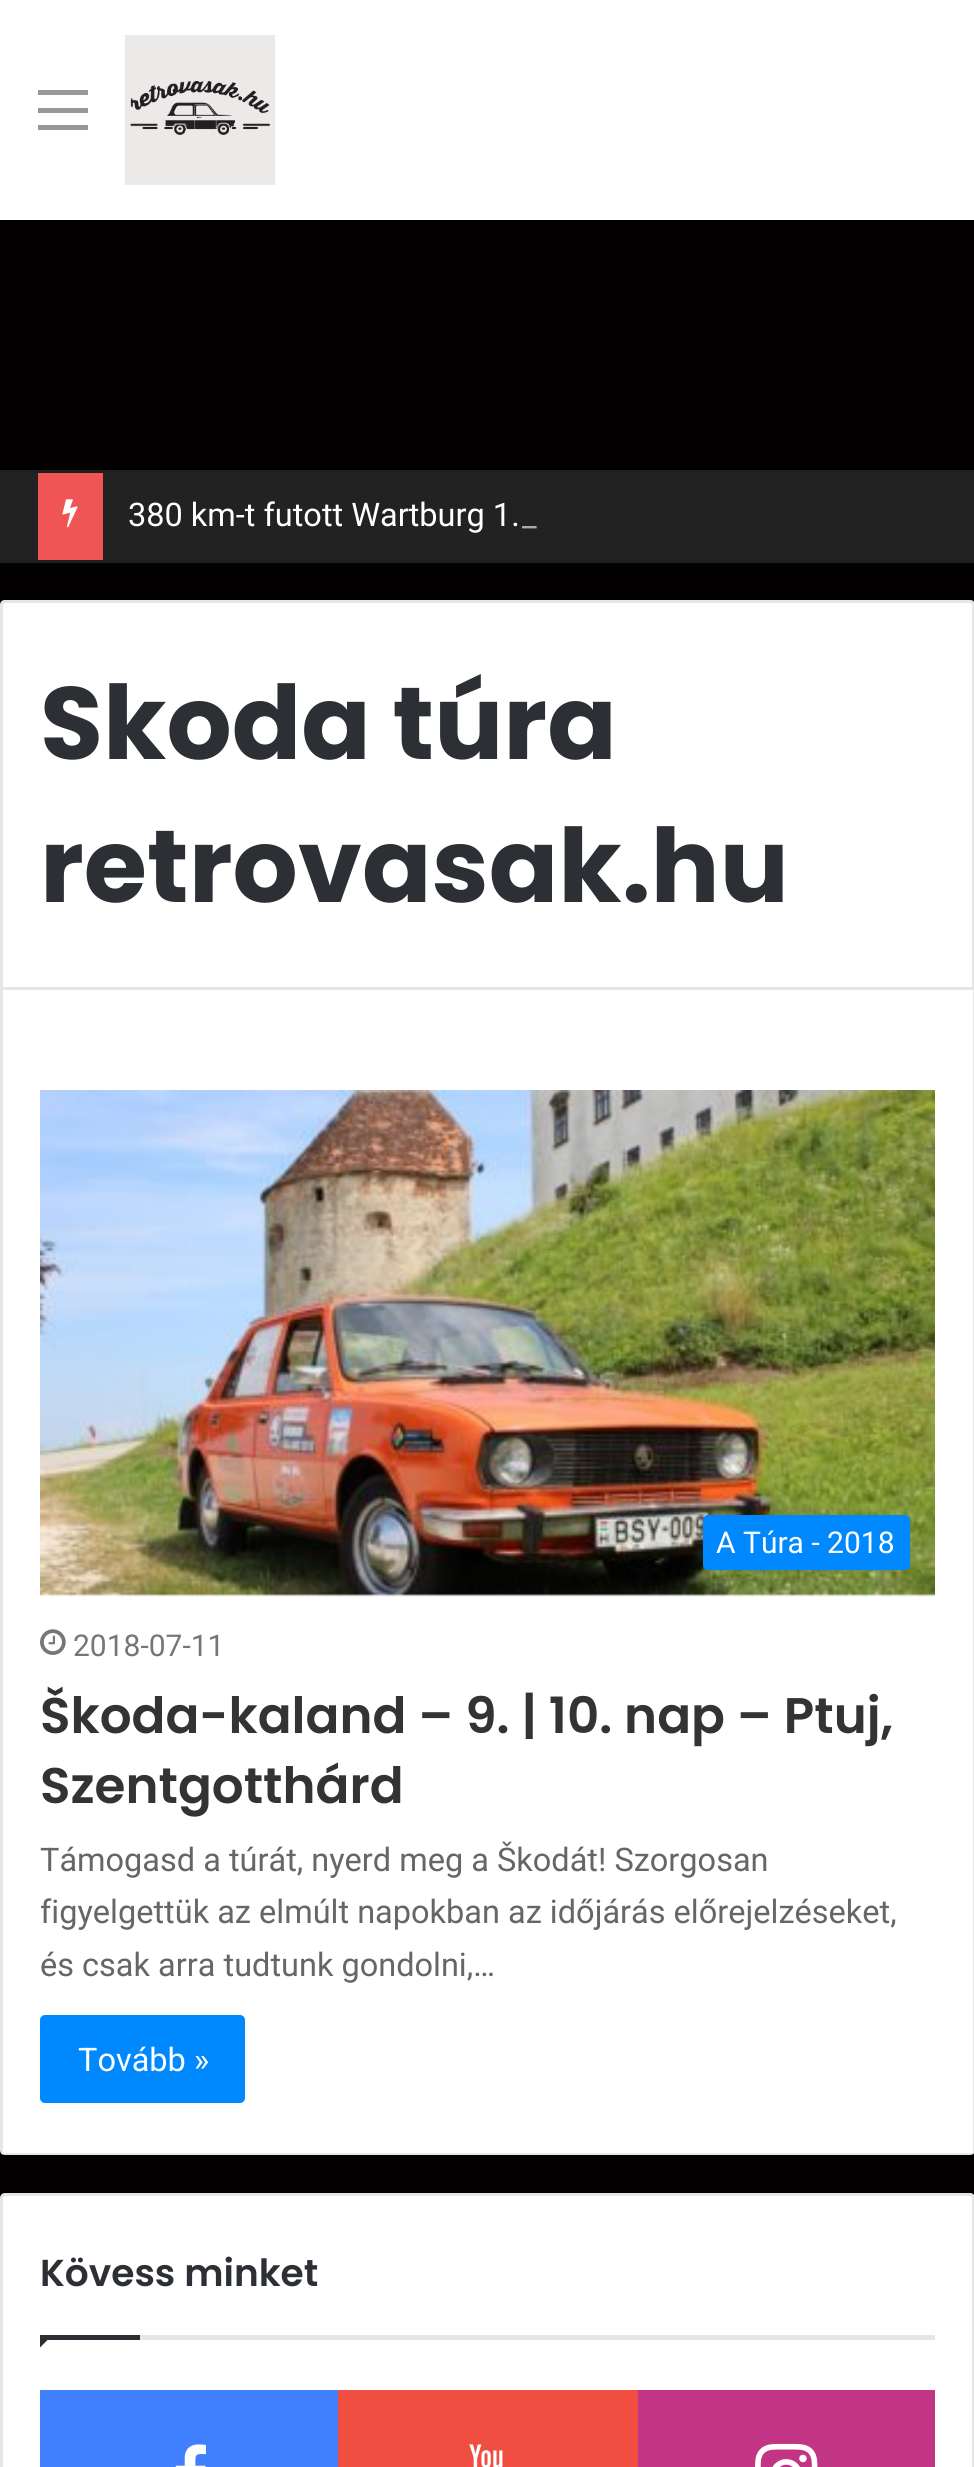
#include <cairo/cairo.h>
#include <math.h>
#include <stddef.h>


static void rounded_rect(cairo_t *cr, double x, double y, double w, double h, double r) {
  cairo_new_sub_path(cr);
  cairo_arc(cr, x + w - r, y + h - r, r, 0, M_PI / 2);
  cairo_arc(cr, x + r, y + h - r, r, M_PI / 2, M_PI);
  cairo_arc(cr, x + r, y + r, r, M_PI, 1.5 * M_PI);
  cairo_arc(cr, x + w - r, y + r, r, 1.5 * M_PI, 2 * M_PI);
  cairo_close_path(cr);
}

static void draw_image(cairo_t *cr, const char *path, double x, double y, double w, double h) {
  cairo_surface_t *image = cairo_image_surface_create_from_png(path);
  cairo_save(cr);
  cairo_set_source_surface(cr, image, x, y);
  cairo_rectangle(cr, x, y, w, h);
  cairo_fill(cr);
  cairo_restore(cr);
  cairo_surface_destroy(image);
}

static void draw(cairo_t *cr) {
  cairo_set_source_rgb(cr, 2 / 255.0, 0, 0);
  cairo_paint(cr);
  cairo_set_source_rgb(cr, 1, 1, 1);
  cairo_rectangle(cr, 0, 0, 974, 220);
  cairo_fill(cr);
  cairo_set_source_rgb(cr, 152 / 255.0, 152 / 255.0, 152 / 255.0);
  cairo_rectangle(cr, 38, 108, 50, 5);
  cairo_fill(cr);
  cairo_rectangle(cr, 38, 90, 50, 5);
  cairo_fill(cr);
  cairo_rectangle(cr, 38, 125, 50, 5);
  cairo_fill(cr);
  draw_image(cr, "images/1.png", 125, 35, 150, 150);
  cairo_set_source_rgb(cr, 34 / 255.0, 34 / 255.0, 34 / 255.0);
  cairo_rectangle(cr, 0, 473, 974, 87);
  cairo_fill(cr);
  cairo_set_source_rgb(cr, 31 / 255.0, 31 / 255.0, 31 / 255.0);
  cairo_rectangle(cr, 0, 470, 974, 3);
  cairo_fill(cr);
  cairo_rectangle(cr, 0, 560, 974, 3);
  cairo_fill(cr);
  cairo_set_source_rgb(cr, 240 / 255.0, 85 / 255.0, 85 / 255.0);
  cairo_rectangle(cr, 38, 473, 65, 87);
  cairo_fill(cr);
  draw_image(cr, "images/2.png", 62, 499, 16, 29);
  cairo_set_source_rgb(cr, 1, 1, 1);
  cairo_new_path(cr);
  cairo_move_to(cr, 5, 600);
  cairo_line_to(cr, 970, 600);
  cairo_curve_to(cr, 973, 600, 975, 602, 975, 605);
  cairo_line_to(cr, 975, 990);
  cairo_line_to(cr, 0, 990);
  cairo_line_to(cr, 0, 605);
  cairo_curve_to(cr, 0, 602, 2, 600, 5, 600);
  cairo_close_path(cr);
  cairo_fill(cr);
  cairo_new_path(cr);
  cairo_move_to(cr, 5, 601.5);
  cairo_line_to(cr, 970, 601.5);
  cairo_curve_to(cr, 972, 601.5, 973.5, 603, 973.5, 605);
  cairo_line_to(cr, 973.5, 988.5);
  cairo_line_to(cr, 1.5, 988.5);
  cairo_line_to(cr, 1.5, 605);
  cairo_curve_to(cr, 1.5, 603, 3, 601.5, 5, 601.5);
  cairo_close_path(cr);
  cairo_set_source_rgba(cr, 0, 0, 0, 0.1);
  cairo_set_line_width(cr, 3);
  cairo_stroke(cr);
  cairo_set_source_rgb(cr, 1, 1, 1);
  cairo_new_path(cr);
  cairo_move_to(cr, 0, 990);
  cairo_line_to(cr, 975, 990);
  cairo_line_to(cr, 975, 2150);
  cairo_curve_to(cr, 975, 2153, 973, 2155, 970, 2155);
  cairo_line_to(cr, 5, 2155);
  cairo_curve_to(cr, 2, 2155, 0, 2153, 0, 2150);
  cairo_close_path(cr);
  cairo_fill(cr);
  cairo_set_source_rgb(cr, 230 / 255.0, 230 / 255.0, 230 / 255.0);
  cairo_rectangle(cr, 973, 990, 1, 1163);
  cairo_fill(cr);
  cairo_set_source_rgba(cr, 0, 0, 0, 0.1);
  cairo_rectangle(cr, 3, 2153, 970, 2);
  cairo_fill(cr);
  cairo_rectangle(cr, 0, 990, 3, 1163);
  cairo_fill(cr);
  draw_image(cr, "images/3.png", 40, 1090, 895, 507);
  cairo_set_source_rgb(cr, 0, 136 / 255.0, 1);
  rounded_rect(cr, 703, 1515, 207, 55, 5);
  cairo_fill(cr);
  draw_image(cr, "images/4.png", 40, 1629, 26, 26);
  rounded_rect(cr, 40, 2015, 205, 88, 5);
  cairo_fill(cr);
  cairo_set_source_rgb(cr, 1, 1, 1);
  rounded_rect(cr, 0, 2193, 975, 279, 5);
  cairo_fill(cr);
  rounded_rect(cr, 1.5, 2194.5, 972, 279, 3.5);
  cairo_set_source_rgba(cr, 0, 0, 0, 0.1);
  cairo_stroke(cr);
  cairo_set_source_rgb(cr, 230 / 255.0, 230 / 255.0, 230 / 255.0);
  cairo_rectangle(cr, 140, 2335, 795, 5);
  cairo_fill(cr);
  cairo_set_source_rgb(cr, 44 / 255.0, 47 / 255.0, 52 / 255.0);
  cairo_new_path(cr);
  cairo_move_to(cr, 40, 2335);
  cairo_line_to(cr, 52.5, 2335);
  cairo_line_to(cr, 40, 2347.5);
  cairo_close_path(cr);
  cairo_fill(cr);
  cairo_rectangle(cr, 40, 2335, 100, 5);
  cairo_fill(cr);
  cairo_set_source_rgb(cr, 64 / 255.0, 128 / 255.0, 1);
  cairo_rectangle(cr, 40, 2390, 298, 77);
  cairo_fill(cr);
  draw_image(cr, "images/5.png", 175, 2444, 31, 23);
  cairo_set_source_rgb(cr, 239 / 255.0, 78 / 255.0, 65 / 255.0);
  cairo_rectangle(cr, 338, 2390, 300, 77);
  cairo_fill(cr);
  draw_image(cr, "images/6.png", 469, 2444, 34, 23);
  cairo_set_source_rgb(cr, 193 / 255.0, 53 / 255.0, 132 / 255.0);
  cairo_rectangle(cr, 638, 2390, 297, 77);
  cairo_fill(cr);
  draw_image(cr, "images/7.png", 755, 2443, 63, 24);
  cairo_select_font_face(cr, "Roboto", CAIRO_FONT_SLANT_NORMAL, CAIRO_FONT_WEIGHT_NORMAL);
  cairo_set_font_size(cr, 32.5);
  cairo_set_source_rgb(cr, 1, 1, 1);
  cairo_move_to(cr, 128, 526);
  cairo_show_text(cr, "380 km-t futott Wartburg 1.");
  cairo_set_source_rgb(cr, 170 / 255.0, 170 / 255.0, 170 / 255.0);
  cairo_move_to(cr, 522, 526);
  cairo_show_text(cr, "_");
  cairo_select_font_face(cr, "Poppins", CAIRO_FONT_SLANT_NORMAL, CAIRO_FONT_WEIGHT_BOLD);
  cairo_set_font_size(cr, 102.5);
  cairo_set_source_rgb(cr, 44 / 255.0, 47 / 255.0, 52 / 255.0);
  cairo_move_to(cr, 40, 759);
  cairo_show_text(cr, "Skoda túra");
  cairo_move_to(cr, 40, 902);
  cairo_show_text(cr, "retrovasak.hu");
  cairo_select_font_face(cr, "Roboto", CAIRO_FONT_SLANT_NORMAL, CAIRO_FONT_WEIGHT_NORMAL);
  cairo_set_font_size(cr, 30);
  cairo_set_source_rgb(cr, 1, 1, 1);
  cairo_move_to(cr, 716, 1553);
  cairo_show_text(cr, "A Túra - 2018");
  cairo_set_source_rgb(cr, 118 / 255.0, 118 / 255.0, 118 / 255.0);
  cairo_move_to(cr, 73, 1656);
  cairo_show_text(cr, "2018-07-11");
  cairo_select_font_face(cr, "Poppins SemiBold", CAIRO_FONT_SLANT_NORMAL, CAIRO_FONT_WEIGHT_NORMAL);
  cairo_set_font_size(cr, 50);
  cairo_set_source_rgb(cr, 51 / 255.0, 51 / 255.0, 51 / 255.0);
  cairo_move_to(cr, 40, 1733);
  cairo_show_text(cr, "Škoda-kaland – 9. | 10. nap – Ptuj,");
  cairo_move_to(cr, 40, 1803);
  cairo_show_text(cr, "Szentgotthárd");
  cairo_select_font_face(cr, "Roboto", CAIRO_FONT_SLANT_NORMAL, CAIRO_FONT_WEIGHT_NORMAL);
  cairo_set_font_size(cr, 32.5);
  cairo_set_source_rgb(cr, 102 / 255.0, 102 / 255.0, 102 / 255.0);
  cairo_move_to(cr, 40, 1871);
  cairo_show_text(cr, "Támogasd a túrát, nyerd meg a Škodát! Szorgosan");
  cairo_move_to(cr, 40, 1923);
  cairo_show_text(cr, "figyelgettük az elmúlt napokban az időjárás előrejelzéseket,");
  cairo_move_to(cr, 40, 1976);
  cairo_show_text(cr, "és csak arra tudtunk gondolni,…");
  cairo_set_source_rgb(cr, 1, 1, 1);
  cairo_move_to(cr, 78, 2071);
  cairo_show_text(cr, "Tovább »");
  cairo_select_font_face(cr, "Poppins SemiBold", CAIRO_FONT_SLANT_NORMAL, CAIRO_FONT_WEIGHT_NORMAL);
  cairo_set_font_size(cr, 37.5);
  cairo_set_source_rgb(cr, 44 / 255.0, 47 / 255.0, 52 / 255.0);
  cairo_move_to(cr, 40, 2286);
  cairo_show_text(cr, "Kövess minket");
}

int main(void) {
  cairo_surface_t *surface = cairo_image_surface_create(CAIRO_FORMAT_RGB24, 974, 2467);
  cairo_t *cr = cairo_create(surface);
  cairo_font_options_t *options = cairo_font_options_create();
  cairo_font_options_set_hint_metrics(options, CAIRO_HINT_METRICS_OFF);
  cairo_font_options_set_hint_style(options, CAIRO_HINT_STYLE_NONE);
  cairo_set_font_options(cr, options);
  cairo_set_miter_limit(cr, 4);
  draw(cr);
  cairo_surface_write_to_png(surface, "out.png");
  cairo_font_options_destroy(options);
  cairo_destroy(cr);
  cairo_surface_destroy(surface);
  return 0;
}
